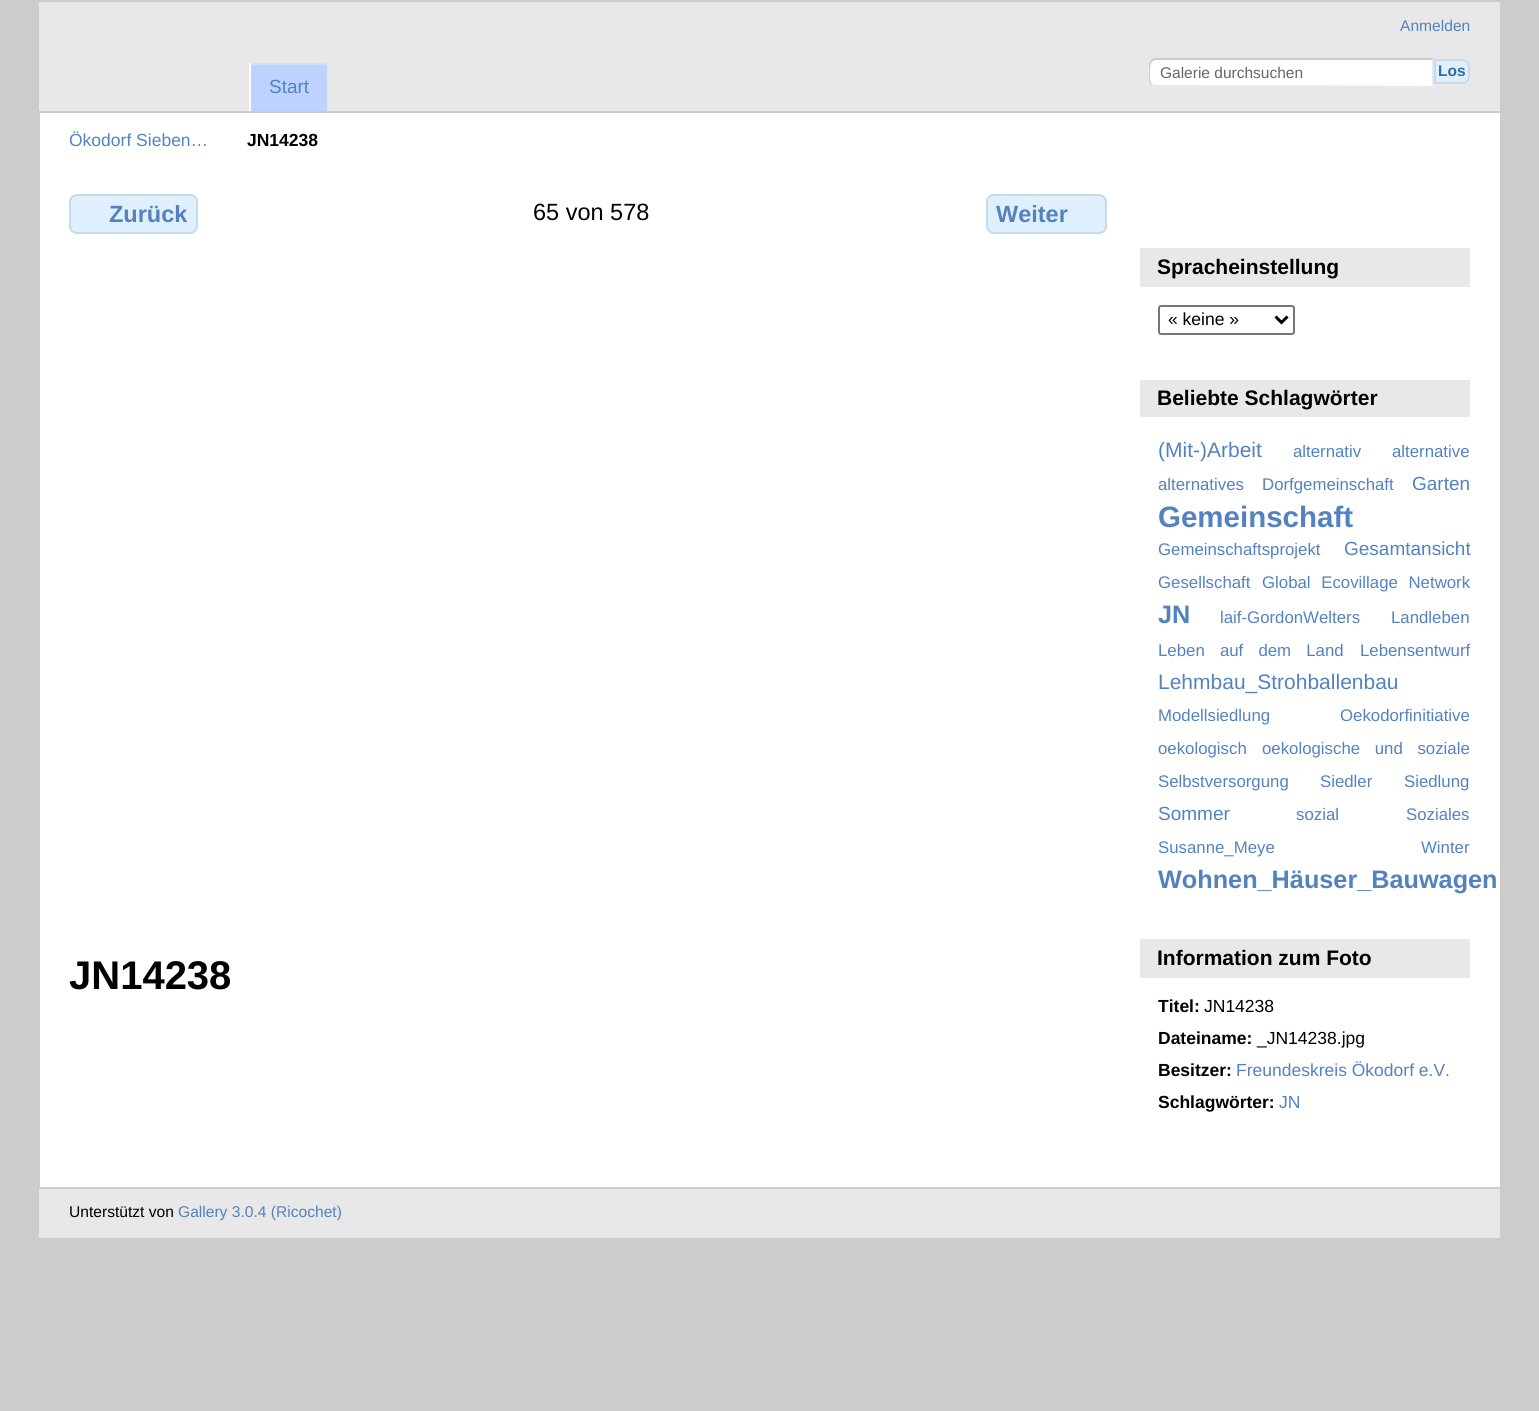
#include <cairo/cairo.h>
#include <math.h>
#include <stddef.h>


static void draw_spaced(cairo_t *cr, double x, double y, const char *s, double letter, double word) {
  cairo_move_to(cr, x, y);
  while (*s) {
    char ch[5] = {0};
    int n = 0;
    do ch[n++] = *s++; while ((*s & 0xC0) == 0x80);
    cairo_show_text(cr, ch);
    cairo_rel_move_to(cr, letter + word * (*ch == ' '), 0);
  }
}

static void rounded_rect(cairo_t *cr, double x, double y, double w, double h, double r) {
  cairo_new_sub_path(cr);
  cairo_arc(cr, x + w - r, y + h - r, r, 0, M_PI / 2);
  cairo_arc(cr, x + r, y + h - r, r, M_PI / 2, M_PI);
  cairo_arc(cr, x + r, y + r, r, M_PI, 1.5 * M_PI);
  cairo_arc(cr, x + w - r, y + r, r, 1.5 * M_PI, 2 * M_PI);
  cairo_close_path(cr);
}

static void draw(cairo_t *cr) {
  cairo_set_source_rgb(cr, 204 / 255.0, 204 / 255.0, 204 / 255.0);
  cairo_paint(cr);
  cairo_set_source_rgb(cr, 1, 1, 1);
  cairo_rectangle(cr, 40, 113, 1460, 1074);
  cairo_fill(cr);
  cairo_set_source_rgb(cr, 232 / 255.0, 232 / 255.0, 232 / 255.0);
  cairo_rectangle(cr, 39, 2, 1461, 109);
  cairo_fill(cr);
  cairo_set_source_rgb(cr, 1, 1, 1);
  cairo_new_path(cr);
  cairo_move_to(cr, 1157, 59);
  cairo_line_to(cr, 1434, 59);
  cairo_line_to(cr, 1434, 87);
  cairo_line_to(cr, 1157, 87);
  cairo_curve_to(cr, 1152.5, 87, 1149, 83.5, 1149, 79);
  cairo_line_to(cr, 1149, 67);
  cairo_curve_to(cr, 1149, 62.5, 1152.5, 59, 1157, 59);
  cairo_close_path(cr);
  cairo_fill(cr);
  cairo_set_source_rgb(cr, 204 / 255.0, 204 / 255.0, 204 / 255.0);
  cairo_new_path(cr);
  cairo_move_to(cr, 1156, 60);
  cairo_curve_to(cr, 1154, 60, 1153, 61, 1152, 62);
  cairo_line_to(cr, 1151, 60);
  cairo_line_to(cr, 1154, 58);
  cairo_line_to(cr, 1434, 58);
  cairo_line_to(cr, 1432, 60);
  cairo_close_path(cr);
  cairo_fill(cr);
  cairo_set_source_rgb(cr, 232 / 255.0, 232 / 255.0, 232 / 255.0);
  cairo_new_path(cr);
  cairo_move_to(cr, 1434, 58.5);
  cairo_line_to(cr, 1432, 60.5);
  cairo_line_to(cr, 1432, 85);
  cairo_line_to(cr, 1434, 87);
  cairo_close_path(cr);
  cairo_fill(cr);
  cairo_new_path(cr);
  cairo_move_to(cr, 1434, 87);
  cairo_line_to(cr, 1432, 85);
  cairo_line_to(cr, 1432, 86);
  cairo_line_to(cr, 1155, 85);
  cairo_line_to(cr, 1152, 84);
  cairo_line_to(cr, 1151, 85);
  cairo_curve_to(cr, 1152, 86, 1154, 87, 1156, 87);
  cairo_close_path(cr);
  cairo_fill(cr);
  cairo_set_source_rgb(cr, 204 / 255.0, 204 / 255.0, 204 / 255.0);
  cairo_new_path(cr);
  cairo_move_to(cr, 1149, 66);
  cairo_line_to(cr, 1149, 80);
  cairo_curve_to(cr, 1149, 82, 1150, 84, 1151, 85);
  cairo_line_to(cr, 1152, 84);
  cairo_curve_to(cr, 1150, 81.5, 1150, 77.5, 1150, 74.5);
  cairo_line_to(cr, 1150, 73);
  cairo_curve_to(cr, 1150, 69.5, 1150, 64.5, 1152, 61.5);
  cairo_line_to(cr, 1151, 60.5);
  cairo_curve_to(cr, 1150, 62, 1149, 64, 1149, 66);
  cairo_close_path(cr);
  cairo_fill(cr);
  cairo_set_source_rgb(cr, 223 / 255.0, 239 / 255.0, 252 / 255.0);
  cairo_new_path(cr);
  cairo_move_to(cr, 1435, 60);
  cairo_line_to(cr, 1462, 60);
  cairo_curve_to(cr, 1466, 60, 1469, 63, 1469, 67);
  cairo_line_to(cr, 1469, 76);
  cairo_curve_to(cr, 1469, 80, 1466, 83, 1462, 83);
  cairo_line_to(cr, 1435, 83);
  cairo_close_path(cr);
  cairo_fill_preserve(cr);
  cairo_set_source_rgb(cr, 197 / 255.0, 219 / 255.0, 236 / 255.0);
  cairo_stroke(cr);
  cairo_set_source_rgb(cr, 189 / 255.0, 210 / 255.0, 1);
  cairo_rectangle(cr, 251, 65, 76, 46);
  cairo_fill(cr);
  cairo_set_source_rgb(cr, 207 / 255.0, 222 / 255.0, 1);
  cairo_rectangle(cr, 249, 63, 78, 2);
  cairo_fill(cr);
  cairo_set_source_rgb(cr, 1, 1, 1);
  cairo_rectangle(cr, 249, 63, 2, 48);
  cairo_fill(cr);
  cairo_set_source_rgb(cr, 223 / 255.0, 239 / 255.0, 252 / 255.0);
  rounded_rect(cr, 70, 195, 127, 38, 7);
  cairo_fill_preserve(cr);
  cairo_set_source_rgb(cr, 197 / 255.0, 219 / 255.0, 236 / 255.0);
  cairo_stroke(cr);
  cairo_set_source_rgb(cr, 223 / 255.0, 239 / 255.0, 252 / 255.0);
  rounded_rect(cr, 987, 195, 119, 38, 7);
  cairo_fill_preserve(cr);
  cairo_set_source_rgb(cr, 197 / 255.0, 219 / 255.0, 236 / 255.0);
  cairo_stroke(cr);
  cairo_set_source_rgb(cr, 232 / 255.0, 232 / 255.0, 232 / 255.0);
  cairo_rectangle(cr, 1140, 248, 330, 39);
  cairo_fill(cr);
  rounded_rect(cr, 1159, 306, 135, 28, 2);
  cairo_set_source_rgb(cr, 118 / 255.0, 118 / 255.0, 118 / 255.0);
  cairo_stroke(cr);
  cairo_new_path(cr);
  cairo_move_to(cr, 1275.5, 316.5);
  cairo_line_to(cr, 1281.5, 322.5);
  cairo_line_to(cr, 1287.5, 316.5);
  cairo_set_source_rgb(cr, 0, 0, 0);
  cairo_set_line_width(cr, 3);
  cairo_stroke(cr);
  cairo_set_source_rgb(cr, 232 / 255.0, 232 / 255.0, 232 / 255.0);
  cairo_rectangle(cr, 1140, 380, 330, 37);
  cairo_fill(cr);
  cairo_rectangle(cr, 1140, 939, 330, 39);
  cairo_fill(cr);
  cairo_rectangle(cr, 39, 1189, 1461, 49);
  cairo_fill(cr);
  cairo_select_font_face(cr, "Liberation Sans", CAIRO_FONT_SLANT_NORMAL, CAIRO_FONT_WEIGHT_NORMAL);
  cairo_set_font_size(cr, 15.6);
  cairo_set_source_rgb(cr, 83 / 255.0, 130 / 255.0, 191 / 255.0);
  cairo_move_to(cr, 1400, 31);
  cairo_show_text(cr, "Anmelden");
  cairo_set_font_size(cr, 15.5);
  cairo_set_source_rgb(cr, 102 / 255.0, 102 / 255.0, 102 / 255.0);
  cairo_move_to(cr, 1160, 78);
  cairo_show_text(cr, "Galerie durchsuchen");
  cairo_select_font_face(cr, "Liberation Sans", CAIRO_FONT_SLANT_NORMAL, CAIRO_FONT_WEIGHT_BOLD);
  cairo_set_source_rgb(cr, 46 / 255.0, 110 / 255.0, 158 / 255.0);
  cairo_move_to(cr, 1438, 76);
  cairo_show_text(cr, "Los");
  cairo_select_font_face(cr, "Liberation Sans", CAIRO_FONT_SLANT_NORMAL, CAIRO_FONT_WEIGHT_NORMAL);
  cairo_set_font_size(cr, 19);
  cairo_set_source_rgb(cr, 83 / 255.0, 130 / 255.0, 191 / 255.0);
  cairo_move_to(cr, 269, 93);
  cairo_show_text(cr, "Start");
  cairo_set_font_size(cr, 17.5);
  cairo_move_to(cr, 69, 146);
  cairo_show_text(cr, "Ökodorf Sieben…");
  cairo_select_font_face(cr, "Liberation Sans", CAIRO_FONT_SLANT_NORMAL, CAIRO_FONT_WEIGHT_BOLD);
  cairo_set_source_rgb(cr, 0, 0, 0);
  cairo_move_to(cr, 247, 146);
  cairo_show_text(cr, "JN14238");
  cairo_set_font_size(cr, 23.5);
  cairo_set_source_rgb(cr, 83 / 255.0, 130 / 255.0, 191 / 255.0);
  cairo_move_to(cr, 109, 222);
  cairo_show_text(cr, "Zurück");
  cairo_select_font_face(cr, "Liberation Sans", CAIRO_FONT_SLANT_NORMAL, CAIRO_FONT_WEIGHT_NORMAL);
  cairo_set_source_rgb(cr, 0, 0, 0);
  cairo_move_to(cr, 533, 220);
  cairo_show_text(cr, "65 von 578");
  cairo_select_font_face(cr, "Liberation Sans", CAIRO_FONT_SLANT_NORMAL, CAIRO_FONT_WEIGHT_BOLD);
  cairo_set_source_rgb(cr, 83 / 255.0, 130 / 255.0, 191 / 255.0);
  cairo_move_to(cr, 996, 222);
  cairo_show_text(cr, "Weiter");
  cairo_set_font_size(cr, 40);
  cairo_set_source_rgb(cr, 0, 0, 0);
  cairo_move_to(cr, 69, 989);
  cairo_show_text(cr, "JN14238");
  cairo_set_font_size(cr, 21);
  cairo_move_to(cr, 1157, 274);
  cairo_show_text(cr, "Spracheinstellung");
  cairo_select_font_face(cr, "Liberation Sans", CAIRO_FONT_SLANT_NORMAL, CAIRO_FONT_WEIGHT_NORMAL);
  cairo_set_font_size(cr, 17.5);
  cairo_move_to(cr, 1168, 325);
  cairo_show_text(cr, "« keine »");
  cairo_select_font_face(cr, "Liberation Sans", CAIRO_FONT_SLANT_NORMAL, CAIRO_FONT_WEIGHT_BOLD);
  cairo_set_font_size(cr, 21);
  cairo_move_to(cr, 1157, 405);
  cairo_show_text(cr, "Beliebte Schlagwörter");
  cairo_select_font_face(cr, "Liberation Sans", CAIRO_FONT_SLANT_NORMAL, CAIRO_FONT_WEIGHT_NORMAL);
  cairo_set_source_rgb(cr, 83 / 255.0, 130 / 255.0, 191 / 255.0);
  cairo_move_to(cr, 1158, 457);
  cairo_show_text(cr, "(Mit-)Arbeit");
  cairo_set_font_size(cr, 16.8);
  cairo_move_to(cr, 1293, 457);
  cairo_show_text(cr, "alternativ");
  cairo_move_to(cr, 1392, 457);
  cairo_show_text(cr, "alternative");
  cairo_move_to(cr, 1158, 490);
  cairo_show_text(cr, "alternatives");
  cairo_move_to(cr, 1262, 490);
  cairo_show_text(cr, "Dorfgemeinschaft");
  cairo_set_font_size(cr, 19);
  cairo_move_to(cr, 1412, 490);
  cairo_show_text(cr, "Garten");
  cairo_select_font_face(cr, "Liberation Sans", CAIRO_FONT_SLANT_NORMAL, CAIRO_FONT_WEIGHT_BOLD);
  cairo_set_font_size(cr, 29.5);
  cairo_move_to(cr, 1158, 527);
  cairo_show_text(cr, "Gemeinschaft");
  cairo_select_font_face(cr, "Liberation Sans", CAIRO_FONT_SLANT_NORMAL, CAIRO_FONT_WEIGHT_NORMAL);
  cairo_set_font_size(cr, 16.8);
  cairo_move_to(cr, 1158, 555);
  cairo_show_text(cr, "Gemeinschaftsprojekt");
  cairo_set_font_size(cr, 19);
  cairo_move_to(cr, 1344, 555);
  cairo_show_text(cr, "Gesamtansicht");
  cairo_set_font_size(cr, 16.8);
  cairo_move_to(cr, 1158, 588);
  cairo_show_text(cr, "Gesellschaft");
  draw_spaced(cr, 1262, 588, "Global Ecovillage Network", 0, 6);
  cairo_select_font_face(cr, "Liberation Sans", CAIRO_FONT_SLANT_NORMAL, CAIRO_FONT_WEIGHT_BOLD);
  cairo_set_font_size(cr, 25.25);
  cairo_move_to(cr, 1158, 623);
  cairo_show_text(cr, "JN");
  cairo_select_font_face(cr, "Liberation Sans", CAIRO_FONT_SLANT_NORMAL, CAIRO_FONT_WEIGHT_NORMAL);
  cairo_set_font_size(cr, 16.8);
  cairo_move_to(cr, 1220, 623);
  cairo_show_text(cr, "laif-GordonWelters");
  cairo_move_to(cr, 1391, 623);
  cairo_show_text(cr, "Landleben");
  draw_spaced(cr, 1158, 656, "Leben auf dem Land", 0, 10.5);
  cairo_move_to(cr, 1360, 656);
  cairo_show_text(cr, "Lebensentwurf");
  cairo_set_font_size(cr, 21);
  cairo_move_to(cr, 1158, 689);
  cairo_show_text(cr, "Lehmbau_Strohballenbau");
  cairo_set_font_size(cr, 16.8);
  cairo_move_to(cr, 1158, 721);
  cairo_show_text(cr, "Modellsiedlung");
  cairo_move_to(cr, 1340, 721);
  cairo_show_text(cr, "Oekodorfinitiative");
  cairo_move_to(cr, 1158, 754);
  cairo_show_text(cr, "oekologisch");
  draw_spaced(cr, 1262, 754, "oekologische und soziale", 0, 10);
  cairo_move_to(cr, 1158, 787);
  cairo_show_text(cr, "Selbstversorgung");
  cairo_move_to(cr, 1320, 787);
  cairo_show_text(cr, "Siedler");
  cairo_move_to(cr, 1404, 787);
  cairo_show_text(cr, "Siedlung");
  cairo_set_font_size(cr, 19);
  cairo_move_to(cr, 1158, 820);
  cairo_show_text(cr, "Sommer");
  cairo_set_font_size(cr, 16.8);
  cairo_move_to(cr, 1296, 820);
  cairo_show_text(cr, "sozial");
  cairo_move_to(cr, 1406, 820);
  cairo_show_text(cr, "Soziales");
  cairo_move_to(cr, 1158, 853);
  cairo_show_text(cr, "Susanne_Meye");
  cairo_move_to(cr, 1421, 853);
  cairo_show_text(cr, "Winter");
  cairo_select_font_face(cr, "Liberation Sans", CAIRO_FONT_SLANT_NORMAL, CAIRO_FONT_WEIGHT_BOLD);
  cairo_set_font_size(cr, 25.25);
  cairo_move_to(cr, 1158, 888);
  cairo_show_text(cr, "Wohnen_Häuser_Bauwagen");
  cairo_set_font_size(cr, 21);
  cairo_set_source_rgb(cr, 0, 0, 0);
  cairo_move_to(cr, 1157, 965);
  cairo_show_text(cr, "Information zum Foto");
  cairo_set_font_size(cr, 17.5);
  cairo_move_to(cr, 1158, 1012);
  cairo_show_text(cr, "Titel:");
  cairo_select_font_face(cr, "Liberation Sans", CAIRO_FONT_SLANT_NORMAL, CAIRO_FONT_WEIGHT_NORMAL);
  cairo_move_to(cr, 1204, 1012);
  cairo_show_text(cr, "JN14238");
  cairo_select_font_face(cr, "Liberation Sans", CAIRO_FONT_SLANT_NORMAL, CAIRO_FONT_WEIGHT_BOLD);
  cairo_move_to(cr, 1158, 1044);
  cairo_show_text(cr, "Dateiname:");
  cairo_select_font_face(cr, "Liberation Sans", CAIRO_FONT_SLANT_NORMAL, CAIRO_FONT_WEIGHT_NORMAL);
  cairo_move_to(cr, 1257, 1044);
  cairo_show_text(cr, "_JN14238.jpg");
  cairo_select_font_face(cr, "Liberation Sans", CAIRO_FONT_SLANT_NORMAL, CAIRO_FONT_WEIGHT_BOLD);
  cairo_move_to(cr, 1158, 1076);
  cairo_show_text(cr, "Besitzer:");
  cairo_select_font_face(cr, "Liberation Sans", CAIRO_FONT_SLANT_NORMAL, CAIRO_FONT_WEIGHT_NORMAL);
  cairo_set_source_rgb(cr, 83 / 255.0, 130 / 255.0, 191 / 255.0);
  cairo_move_to(cr, 1236, 1076);
  cairo_show_text(cr, "Freundeskreis Ökodorf e.V.");
  cairo_select_font_face(cr, "Liberation Sans", CAIRO_FONT_SLANT_NORMAL, CAIRO_FONT_WEIGHT_BOLD);
  cairo_set_source_rgb(cr, 0, 0, 0);
  cairo_move_to(cr, 1158, 1108);
  cairo_show_text(cr, "Schlagwörter:");
  cairo_select_font_face(cr, "Liberation Sans", CAIRO_FONT_SLANT_NORMAL, CAIRO_FONT_WEIGHT_NORMAL);
  cairo_set_source_rgb(cr, 83 / 255.0, 130 / 255.0, 191 / 255.0);
  cairo_move_to(cr, 1279, 1108);
  cairo_show_text(cr, "JN");
  cairo_set_font_size(cr, 15.6);
  cairo_set_source_rgb(cr, 0, 0, 0);
  cairo_move_to(cr, 69, 1217);
  cairo_show_text(cr, "Unterstützt von");
  cairo_set_source_rgb(cr, 83 / 255.0, 130 / 255.0, 191 / 255.0);
  cairo_move_to(cr, 178, 1217);
  cairo_show_text(cr, "Gallery 3.0.4 (Ricochet)");
}

int main(void) {
  cairo_surface_t *surface = cairo_image_surface_create(CAIRO_FORMAT_RGB24, 1539, 1411);
  cairo_t *cr = cairo_create(surface);
  cairo_font_options_t *options = cairo_font_options_create();
  cairo_font_options_set_hint_metrics(options, CAIRO_HINT_METRICS_OFF);
  cairo_font_options_set_hint_style(options, CAIRO_HINT_STYLE_NONE);
  cairo_set_font_options(cr, options);
  cairo_set_miter_limit(cr, 4);
  draw(cr);
  cairo_surface_write_to_png(surface, "out.png");
  cairo_font_options_destroy(options);
  cairo_destroy(cr);
  cairo_surface_destroy(surface);
  return 0;
}
